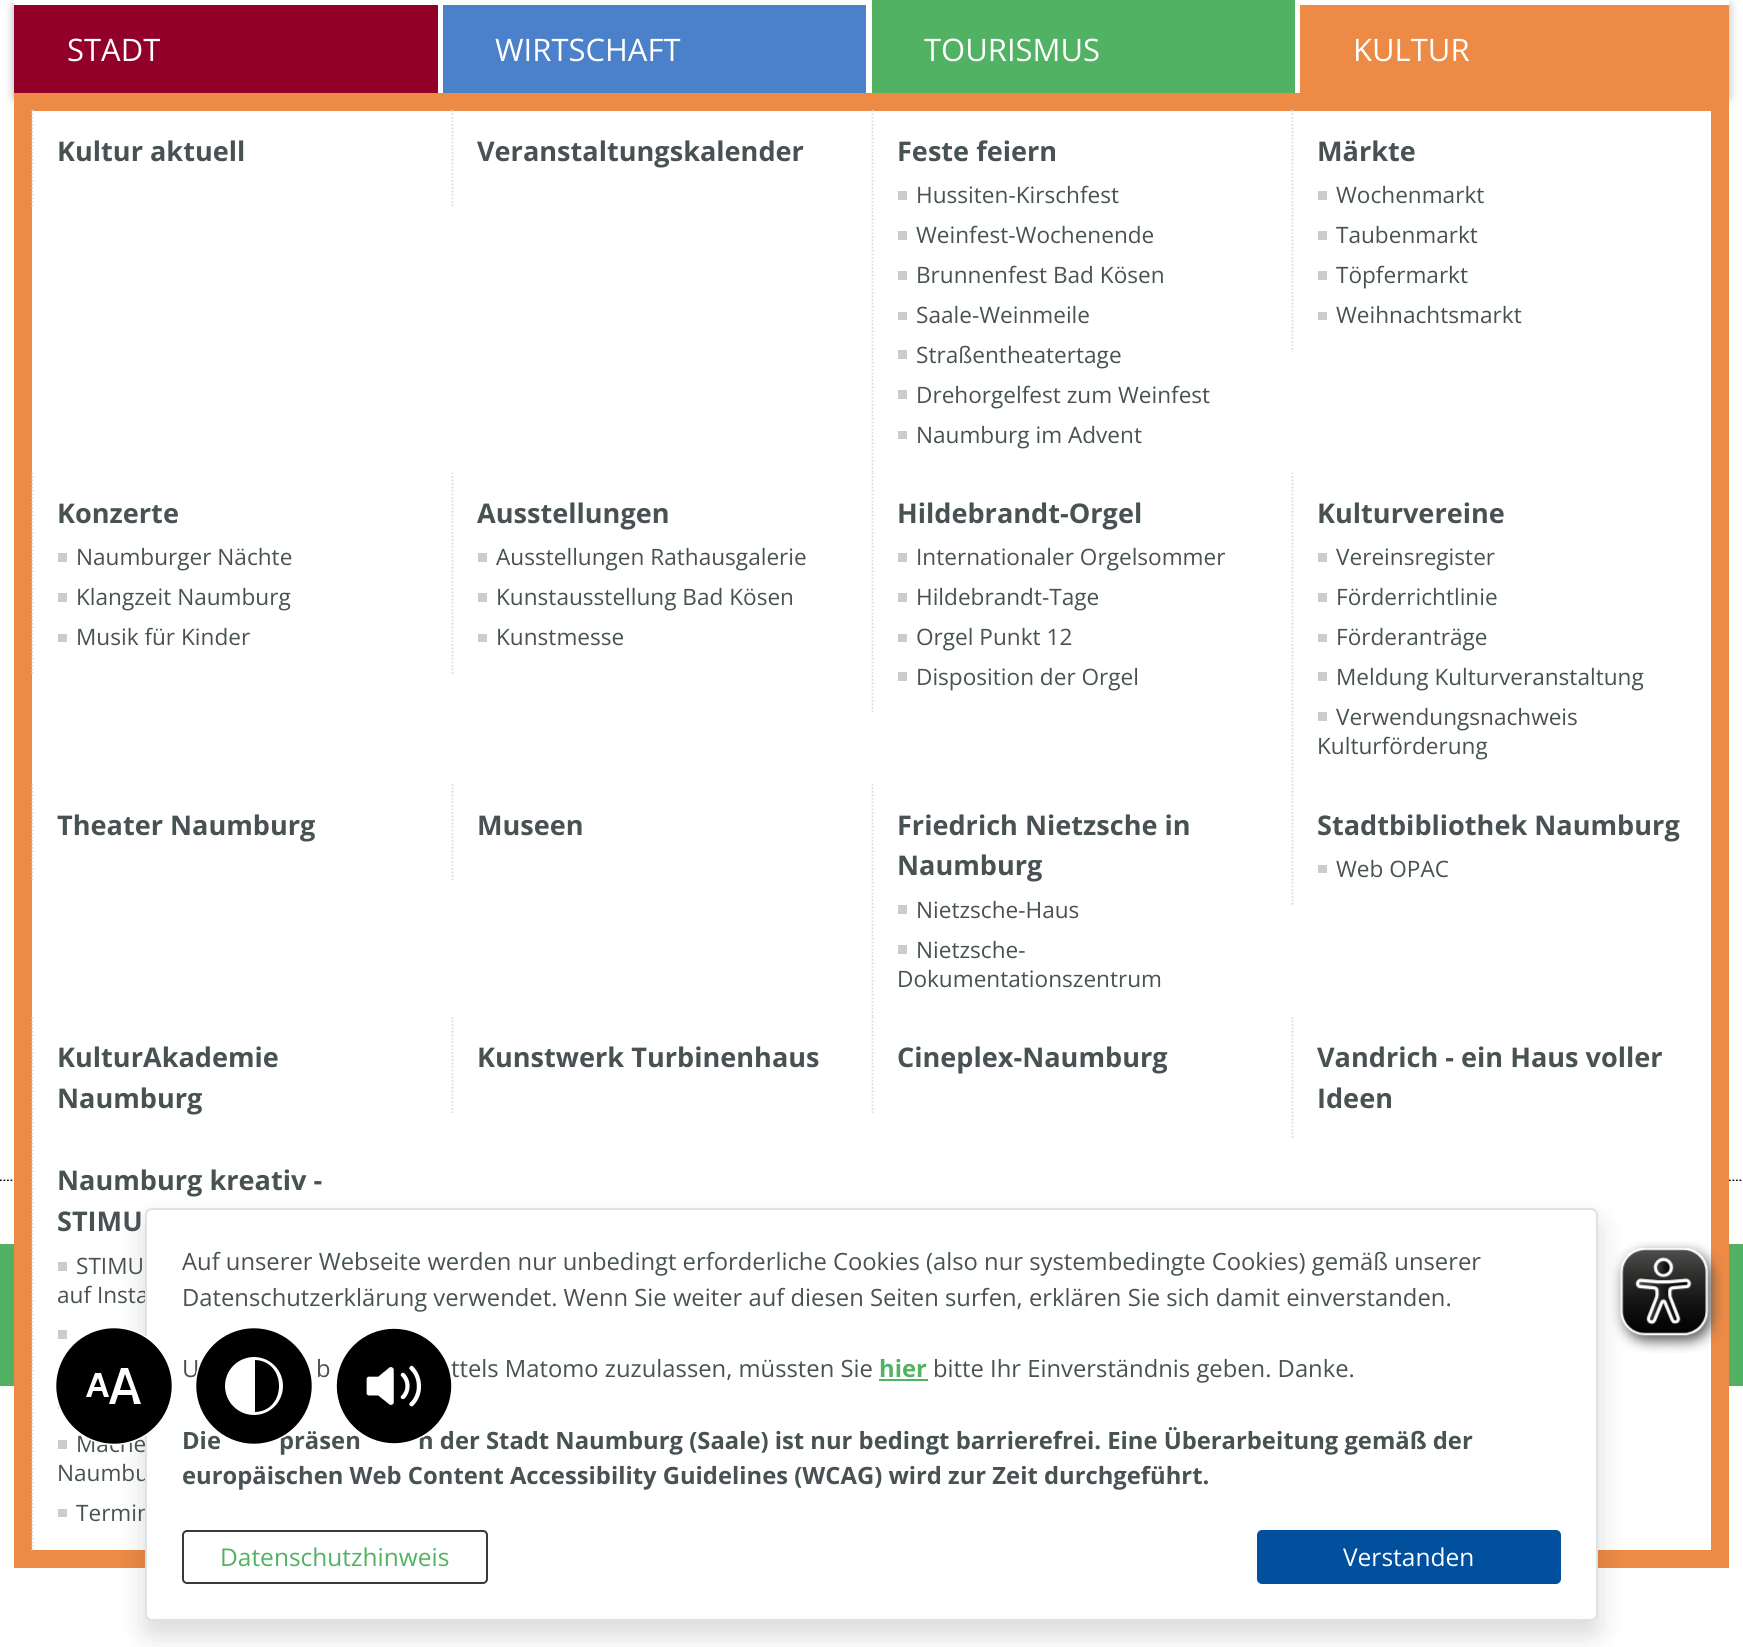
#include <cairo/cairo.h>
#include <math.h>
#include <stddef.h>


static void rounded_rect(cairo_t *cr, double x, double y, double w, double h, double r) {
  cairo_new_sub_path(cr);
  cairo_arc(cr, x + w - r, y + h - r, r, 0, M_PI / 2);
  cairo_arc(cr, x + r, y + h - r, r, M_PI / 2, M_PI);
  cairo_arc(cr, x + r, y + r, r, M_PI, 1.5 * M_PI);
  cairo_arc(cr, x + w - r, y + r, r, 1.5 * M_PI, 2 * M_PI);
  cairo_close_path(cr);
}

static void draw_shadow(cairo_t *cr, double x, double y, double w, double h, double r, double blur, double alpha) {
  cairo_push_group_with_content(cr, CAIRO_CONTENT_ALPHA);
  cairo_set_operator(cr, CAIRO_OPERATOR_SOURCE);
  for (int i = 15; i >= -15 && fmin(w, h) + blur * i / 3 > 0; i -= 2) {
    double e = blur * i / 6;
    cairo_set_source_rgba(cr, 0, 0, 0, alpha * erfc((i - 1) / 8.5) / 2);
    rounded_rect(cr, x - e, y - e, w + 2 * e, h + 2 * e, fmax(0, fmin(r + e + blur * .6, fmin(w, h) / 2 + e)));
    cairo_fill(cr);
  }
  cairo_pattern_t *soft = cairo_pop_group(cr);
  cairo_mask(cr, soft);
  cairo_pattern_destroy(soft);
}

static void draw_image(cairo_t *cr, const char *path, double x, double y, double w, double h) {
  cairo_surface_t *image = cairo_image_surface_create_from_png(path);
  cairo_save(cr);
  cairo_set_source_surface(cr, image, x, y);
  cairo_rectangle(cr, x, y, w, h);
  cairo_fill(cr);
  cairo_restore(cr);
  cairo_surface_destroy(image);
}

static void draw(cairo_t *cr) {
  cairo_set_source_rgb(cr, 1, 1, 1);
  cairo_paint(cr);
  cairo_set_source_rgb(cr, 0, 0, 0);
  draw_shadow(cr, 14, 5, 1715, 93, 0, 5, 0.3);
  cairo_set_source_rgb(cr, 1, 1, 1);
  cairo_rectangle(cr, 438, 0, 862, 93);
  cairo_fill(cr);
  cairo_set_source_rgb(cr, 236 / 255.0, 138 / 255.0, 70 / 255.0);
  cairo_rectangle(cr, 1300, 5, 429, 88);
  cairo_fill(cr);
  cairo_set_source_rgb(cr, 1, 1, 1);
  cairo_rectangle(cr, 1300, 0, 429, 5);
  cairo_fill(cr);
  cairo_new_path(cr);
  cairo_move_to(cr, 0, 1180.5);
  cairo_line_to(cr, 1743, 1180.5);
  cairo_set_source_rgb(cr, 0, 0, 0);
  cairo_set_line_width(cr, 1.8);
  cairo_set_dash(cr, (double[]){1.75, 1.75}, 2, 0);
  cairo_stroke(cr);
  cairo_set_source_rgb(cr, 1, 1, 1);
  cairo_rectangle(cr, 0, 1181, 1742, 1);
  cairo_fill(cr);
  cairo_set_source_rgb(cr, 81 / 255.0, 178 / 255.0, 99 / 255.0);
  cairo_rectangle(cr, 0, 1244, 1743, 142);
  cairo_fill(cr);
  cairo_set_source_rgb(cr, 1, 1, 1);
  cairo_rectangle(cr, 32, 1179, 1679, 207);
  cairo_fill(cr);
  cairo_rectangle(cr, 23, 102, 1697, 1457);
  cairo_set_source_rgb(cr, 236 / 255.0, 138 / 255.0, 70 / 255.0);
  cairo_set_line_width(cr, 18);
  cairo_set_dash(cr, NULL, 0, 0);
  cairo_stroke(cr);
  cairo_new_path(cr);
  cairo_move_to(cr, 32.5, 110);
  cairo_line_to(cr, 32.5, 206.5);
  cairo_set_source_rgb(cr, 221 / 255.0, 221 / 255.0, 221 / 255.0);
  cairo_set_line_width(cr, 1.8);
  cairo_set_dash(cr, (double[]){1.75, 1.75}, 2, 0);
  cairo_stroke(cr);
  cairo_new_path(cr);
  cairo_move_to(cr, 452.5, 110);
  cairo_line_to(cr, 452.5, 206.5);
  cairo_stroke(cr);
  cairo_new_path(cr);
  cairo_move_to(cr, 872.5, 110);
  cairo_line_to(cr, 872.5, 472.5);
  cairo_stroke(cr);
  cairo_set_source_rgb(cr, 204 / 255.0, 204 / 255.0, 204 / 255.0);
  cairo_rectangle(cr, 898, 191, 9, 9);
  cairo_fill(cr);
  cairo_rectangle(cr, 898, 231, 9, 9);
  cairo_fill(cr);
  cairo_rectangle(cr, 898, 271, 9, 9);
  cairo_fill(cr);
  cairo_rectangle(cr, 898, 312, 9, 8);
  cairo_fill(cr);
  cairo_rectangle(cr, 898, 350, 9, 9);
  cairo_fill(cr);
  cairo_rectangle(cr, 898, 390, 9, 9);
  cairo_fill(cr);
  cairo_rectangle(cr, 898, 431, 9, 8);
  cairo_fill(cr);
  cairo_new_path(cr);
  cairo_move_to(cr, 1292.5, 110);
  cairo_line_to(cr, 1292.5, 352);
  cairo_set_source_rgb(cr, 221 / 255.0, 221 / 255.0, 221 / 255.0);
  cairo_stroke(cr);
  cairo_set_source_rgb(cr, 204 / 255.0, 204 / 255.0, 204 / 255.0);
  cairo_rectangle(cr, 1318, 191, 9, 9);
  cairo_fill(cr);
  cairo_rectangle(cr, 1318, 231, 9, 9);
  cairo_fill(cr);
  cairo_rectangle(cr, 1318, 271, 9, 9);
  cairo_fill(cr);
  cairo_rectangle(cr, 1318, 312, 9, 8);
  cairo_fill(cr);
  cairo_new_path(cr);
  cairo_move_to(cr, 32.5, 472.5);
  cairo_line_to(cr, 32.5, 674);
  cairo_set_source_rgb(cr, 221 / 255.0, 221 / 255.0, 221 / 255.0);
  cairo_stroke(cr);
  cairo_set_source_rgb(cr, 204 / 255.0, 204 / 255.0, 204 / 255.0);
  cairo_rectangle(cr, 58, 553, 9, 9);
  cairo_fill(cr);
  cairo_rectangle(cr, 58, 593, 9, 9);
  cairo_fill(cr);
  cairo_rectangle(cr, 58, 634, 9, 8);
  cairo_fill(cr);
  cairo_new_path(cr);
  cairo_move_to(cr, 452.5, 472.5);
  cairo_line_to(cr, 452.5, 674);
  cairo_set_source_rgb(cr, 221 / 255.0, 221 / 255.0, 221 / 255.0);
  cairo_stroke(cr);
  cairo_set_source_rgb(cr, 204 / 255.0, 204 / 255.0, 204 / 255.0);
  cairo_rectangle(cr, 478, 553, 9, 9);
  cairo_fill(cr);
  cairo_rectangle(cr, 478, 593, 9, 9);
  cairo_fill(cr);
  cairo_rectangle(cr, 478, 634, 9, 8);
  cairo_fill(cr);
  cairo_new_path(cr);
  cairo_move_to(cr, 872.5, 472.5);
  cairo_line_to(cr, 872.5, 714);
  cairo_set_source_rgb(cr, 221 / 255.0, 221 / 255.0, 221 / 255.0);
  cairo_stroke(cr);
  cairo_set_source_rgb(cr, 204 / 255.0, 204 / 255.0, 204 / 255.0);
  cairo_rectangle(cr, 898, 553, 9, 9);
  cairo_fill(cr);
  cairo_rectangle(cr, 898, 593, 9, 9);
  cairo_fill(cr);
  cairo_rectangle(cr, 898, 634, 9, 8);
  cairo_fill(cr);
  cairo_rectangle(cr, 898, 672, 9, 9);
  cairo_fill(cr);
  cairo_new_path(cr);
  cairo_move_to(cr, 1292.5, 472.5);
  cairo_line_to(cr, 1292.5, 784);
  cairo_set_source_rgb(cr, 221 / 255.0, 221 / 255.0, 221 / 255.0);
  cairo_stroke(cr);
  cairo_set_source_rgb(cr, 204 / 255.0, 204 / 255.0, 204 / 255.0);
  cairo_rectangle(cr, 1318, 553, 9, 9);
  cairo_fill(cr);
  cairo_rectangle(cr, 1318, 593, 9, 9);
  cairo_fill(cr);
  cairo_rectangle(cr, 1318, 634, 9, 8);
  cairo_fill(cr);
  cairo_rectangle(cr, 1318, 672, 9, 9);
  cairo_fill(cr);
  cairo_rectangle(cr, 1318, 712, 9, 9);
  cairo_fill(cr);
  cairo_new_path(cr);
  cairo_move_to(cr, 32.5, 784);
  cairo_line_to(cr, 32.5, 880);
  cairo_set_source_rgb(cr, 221 / 255.0, 221 / 255.0, 221 / 255.0);
  cairo_stroke(cr);
  cairo_new_path(cr);
  cairo_move_to(cr, 452.5, 784);
  cairo_line_to(cr, 452.5, 880);
  cairo_stroke(cr);
  cairo_new_path(cr);
  cairo_move_to(cr, 872.5, 784);
  cairo_line_to(cr, 872.5, 1017);
  cairo_stroke(cr);
  cairo_set_source_rgb(cr, 204 / 255.0, 204 / 255.0, 204 / 255.0);
  cairo_rectangle(cr, 898, 905, 9, 9);
  cairo_fill(cr);
  cairo_rectangle(cr, 898, 945, 9, 9);
  cairo_fill(cr);
  cairo_new_path(cr);
  cairo_move_to(cr, 1292.5, 784);
  cairo_line_to(cr, 1292.5, 906.5);
  cairo_set_source_rgb(cr, 221 / 255.0, 221 / 255.0, 221 / 255.0);
  cairo_stroke(cr);
  cairo_set_source_rgb(cr, 204 / 255.0, 204 / 255.0, 204 / 255.0);
  cairo_rectangle(cr, 1318, 865, 9, 8);
  cairo_fill(cr);
  cairo_new_path(cr);
  cairo_move_to(cr, 32.5, 1017);
  cairo_line_to(cr, 32.5, 1139);
  cairo_set_source_rgb(cr, 221 / 255.0, 221 / 255.0, 221 / 255.0);
  cairo_stroke(cr);
  cairo_new_path(cr);
  cairo_move_to(cr, 452.5, 1017);
  cairo_line_to(cr, 452.5, 1113);
  cairo_stroke(cr);
  cairo_new_path(cr);
  cairo_move_to(cr, 872.5, 1017);
  cairo_line_to(cr, 872.5, 1113);
  cairo_stroke(cr);
  cairo_new_path(cr);
  cairo_move_to(cr, 1292.5, 1017);
  cairo_line_to(cr, 1292.5, 1139);
  cairo_stroke(cr);
  cairo_new_path(cr);
  cairo_move_to(cr, 32.5, 1139);
  cairo_line_to(cr, 32.5, 1550.5);
  cairo_stroke(cr);
  cairo_set_source_rgb(cr, 204 / 255.0, 204 / 255.0, 204 / 255.0);
  cairo_rectangle(cr, 58, 1262, 9, 9);
  cairo_fill(cr);
  cairo_rectangle(cr, 58, 1330, 9, 9);
  cairo_fill(cr);
  cairo_rectangle(cr, 58, 1403, 3, 6);
  cairo_fill(cr);
  cairo_rectangle(cr, 58, 1440, 9, 9);
  cairo_fill(cr);
  cairo_rectangle(cr, 58, 1509, 9, 8);
  cairo_fill(cr);
  cairo_set_source_rgb(cr, 146 / 255.0, 0, 40 / 255.0);
  cairo_rectangle(cr, 14, 5, 424, 88);
  cairo_fill(cr);
  cairo_set_source_rgb(cr, 1, 1, 1);
  cairo_rectangle(cr, 14, 0, 424, 5);
  cairo_fill(cr);
  cairo_set_source_rgb(cr, 75 / 255.0, 129 / 255.0, 202 / 255.0);
  cairo_rectangle(cr, 443, 5, 423, 88);
  cairo_fill(cr);
  cairo_set_source_rgb(cr, 81 / 255.0, 178 / 255.0, 99 / 255.0);
  cairo_rectangle(cr, 872, 0, 423, 93);
  cairo_fill(cr);
  cairo_set_source_rgb(cr, 0, 0, 0);
  draw_shadow(cr, 145, 1222, 1453, 413, 7, 14, 0.15);
  draw_image(cr, "images/2.png", 1611, 1241, 113, 112);
  cairo_select_font_face(cr, "Open Sans", CAIRO_FONT_SLANT_NORMAL, CAIRO_FONT_WEIGHT_NORMAL);
  cairo_set_font_size(cr, 31);
  cairo_set_source_rgb(cr, 1, 1, 1);
  cairo_move_to(cr, 1353, 61);
  cairo_show_text(cr, "KULTUR");
  cairo_select_font_face(cr, "Open Sans", CAIRO_FONT_SLANT_NORMAL, CAIRO_FONT_WEIGHT_BOLD);
  cairo_set_font_size(cr, 27.1);
  cairo_set_source_rgb(cr, 72 / 255.0, 82 / 255.0, 83 / 255.0);
  cairo_move_to(cr, 57, 161);
  cairo_show_text(cr, "Kultur aktuell");
  cairo_move_to(cr, 477, 161);
  cairo_show_text(cr, "Veranstaltungskalender");
  cairo_move_to(cr, 897, 161);
  cairo_show_text(cr, "Feste feiern");
  cairo_select_font_face(cr, "Open Sans", CAIRO_FONT_SLANT_NORMAL, CAIRO_FONT_WEIGHT_NORMAL);
  cairo_set_font_size(cr, 22.6);
  cairo_move_to(cr, 916, 203);
  cairo_show_text(cr, "Hussiten-Kirschfest");
  cairo_move_to(cr, 916, 243);
  cairo_show_text(cr, "Weinfest-Wochenende");
  cairo_move_to(cr, 916, 283);
  cairo_show_text(cr, "Brunnenfest Bad Kösen");
  cairo_move_to(cr, 916, 323);
  cairo_show_text(cr, "Saale-Weinmeile");
  cairo_move_to(cr, 916, 363);
  cairo_show_text(cr, "Straßentheatertage");
  cairo_move_to(cr, 916, 403);
  cairo_show_text(cr, "Drehorgelfest zum Weinfest");
  cairo_move_to(cr, 916, 443);
  cairo_show_text(cr, "Naumburg im Advent");
  cairo_select_font_face(cr, "Open Sans", CAIRO_FONT_SLANT_NORMAL, CAIRO_FONT_WEIGHT_BOLD);
  cairo_set_font_size(cr, 27.1);
  cairo_move_to(cr, 1317, 161);
  cairo_show_text(cr, "Märkte");
  cairo_select_font_face(cr, "Open Sans", CAIRO_FONT_SLANT_NORMAL, CAIRO_FONT_WEIGHT_NORMAL);
  cairo_set_font_size(cr, 22.6);
  cairo_move_to(cr, 1336, 203);
  cairo_show_text(cr, "Wochenmarkt");
  cairo_move_to(cr, 1336, 243);
  cairo_show_text(cr, "Taubenmarkt");
  cairo_move_to(cr, 1336, 283);
  cairo_show_text(cr, "Töpfermarkt");
  cairo_move_to(cr, 1336, 323);
  cairo_show_text(cr, "Weihnachtsmarkt");
  cairo_select_font_face(cr, "Open Sans", CAIRO_FONT_SLANT_NORMAL, CAIRO_FONT_WEIGHT_BOLD);
  cairo_set_font_size(cr, 27.1);
  cairo_move_to(cr, 57, 523);
  cairo_show_text(cr, "Konzerte");
  cairo_select_font_face(cr, "Open Sans", CAIRO_FONT_SLANT_NORMAL, CAIRO_FONT_WEIGHT_NORMAL);
  cairo_set_font_size(cr, 22.6);
  cairo_move_to(cr, 76, 565);
  cairo_show_text(cr, "Naumburger Nächte");
  cairo_move_to(cr, 76, 605);
  cairo_show_text(cr, "Klangzeit Naumburg");
  cairo_move_to(cr, 76, 645);
  cairo_show_text(cr, "Musik für Kinder");
  cairo_select_font_face(cr, "Open Sans", CAIRO_FONT_SLANT_NORMAL, CAIRO_FONT_WEIGHT_BOLD);
  cairo_set_font_size(cr, 27.1);
  cairo_move_to(cr, 477, 523);
  cairo_show_text(cr, "Ausstellungen");
  cairo_select_font_face(cr, "Open Sans", CAIRO_FONT_SLANT_NORMAL, CAIRO_FONT_WEIGHT_NORMAL);
  cairo_set_font_size(cr, 22.6);
  cairo_move_to(cr, 496, 565);
  cairo_show_text(cr, "Ausstellungen Rathausgalerie");
  cairo_move_to(cr, 496, 605);
  cairo_show_text(cr, "Kunstausstellung Bad Kösen");
  cairo_move_to(cr, 496, 645);
  cairo_show_text(cr, "Kunstmesse");
  cairo_select_font_face(cr, "Open Sans", CAIRO_FONT_SLANT_NORMAL, CAIRO_FONT_WEIGHT_BOLD);
  cairo_set_font_size(cr, 27.1);
  cairo_move_to(cr, 897, 523);
  cairo_show_text(cr, "Hildebrandt-Orgel");
  cairo_select_font_face(cr, "Open Sans", CAIRO_FONT_SLANT_NORMAL, CAIRO_FONT_WEIGHT_NORMAL);
  cairo_set_font_size(cr, 22.6);
  cairo_move_to(cr, 916, 565);
  cairo_show_text(cr, "Internationaler Orgelsommer");
  cairo_move_to(cr, 916, 605);
  cairo_show_text(cr, "Hildebrandt-Tage");
  cairo_move_to(cr, 916, 645);
  cairo_show_text(cr, "Orgel Punkt 12");
  cairo_move_to(cr, 916, 685);
  cairo_show_text(cr, "Disposition der Orgel");
  cairo_select_font_face(cr, "Open Sans", CAIRO_FONT_SLANT_NORMAL, CAIRO_FONT_WEIGHT_BOLD);
  cairo_set_font_size(cr, 27.1);
  cairo_move_to(cr, 1317, 523);
  cairo_show_text(cr, "Kulturvereine");
  cairo_select_font_face(cr, "Open Sans", CAIRO_FONT_SLANT_NORMAL, CAIRO_FONT_WEIGHT_NORMAL);
  cairo_set_font_size(cr, 22.6);
  cairo_move_to(cr, 1336, 565);
  cairo_show_text(cr, "Vereinsregister");
  cairo_move_to(cr, 1336, 605);
  cairo_show_text(cr, "Förderrichtlinie");
  cairo_move_to(cr, 1336, 645);
  cairo_show_text(cr, "Förderanträge");
  cairo_move_to(cr, 1336, 685);
  cairo_show_text(cr, "Meldung Kulturveranstaltung");
  cairo_move_to(cr, 1336, 725);
  cairo_show_text(cr, "Verwendungsnachweis");
  cairo_move_to(cr, 1317, 754);
  cairo_show_text(cr, "Kulturförderung");
  cairo_select_font_face(cr, "Open Sans", CAIRO_FONT_SLANT_NORMAL, CAIRO_FONT_WEIGHT_BOLD);
  cairo_set_font_size(cr, 27.1);
  cairo_move_to(cr, 57, 835);
  cairo_show_text(cr, "Theater Naumburg");
  cairo_move_to(cr, 477, 835);
  cairo_show_text(cr, "Museen");
  cairo_move_to(cr, 897, 835);
  cairo_show_text(cr, "Friedrich Nietzsche in");
  cairo_move_to(cr, 897, 875);
  cairo_show_text(cr, "Naumburg");
  cairo_select_font_face(cr, "Open Sans", CAIRO_FONT_SLANT_NORMAL, CAIRO_FONT_WEIGHT_NORMAL);
  cairo_set_font_size(cr, 22.6);
  cairo_move_to(cr, 916, 918);
  cairo_show_text(cr, "Nietzsche-Haus");
  cairo_move_to(cr, 916, 958);
  cairo_show_text(cr, "Nietzsche-");
  cairo_move_to(cr, 897, 987);
  cairo_show_text(cr, "Dokumentationszentrum");
  cairo_select_font_face(cr, "Open Sans", CAIRO_FONT_SLANT_NORMAL, CAIRO_FONT_WEIGHT_BOLD);
  cairo_set_font_size(cr, 27.1);
  cairo_move_to(cr, 1317, 835);
  cairo_show_text(cr, "Stadtbibliothek Naumburg");
  cairo_select_font_face(cr, "Open Sans", CAIRO_FONT_SLANT_NORMAL, CAIRO_FONT_WEIGHT_NORMAL);
  cairo_set_font_size(cr, 22.6);
  cairo_move_to(cr, 1336, 877);
  cairo_show_text(cr, "Web OPAC");
  cairo_select_font_face(cr, "Open Sans", CAIRO_FONT_SLANT_NORMAL, CAIRO_FONT_WEIGHT_BOLD);
  cairo_set_font_size(cr, 27.1);
  cairo_move_to(cr, 57, 1067);
  cairo_show_text(cr, "KulturAkademie");
  cairo_move_to(cr, 57, 1108);
  cairo_show_text(cr, "Naumburg");
  cairo_move_to(cr, 477, 1067);
  cairo_show_text(cr, "Kunstwerk Turbinenhaus");
  cairo_move_to(cr, 897, 1067);
  cairo_show_text(cr, "Cineplex-Naumburg");
  cairo_move_to(cr, 1317, 1067);
  cairo_show_text(cr, "Vandrich - ein Haus voller");
  cairo_move_to(cr, 1317, 1108);
  cairo_show_text(cr, "Ideen");
  cairo_move_to(cr, 57, 1190);
  cairo_show_text(cr, "Naumburg kreativ -");
  cairo_move_to(cr, 57, 1231);
  cairo_show_text(cr, "STIMU");
  cairo_select_font_face(cr, "Open Sans", CAIRO_FONT_SLANT_NORMAL, CAIRO_FONT_WEIGHT_NORMAL);
  cairo_set_font_size(cr, 22.6);
  cairo_move_to(cr, 76, 1274);
  cairo_show_text(cr, "STIMU");
  cairo_move_to(cr, 57, 1303);
  cairo_show_text(cr, "auf Insta");
  cairo_move_to(cr, 76, 1452);
  cairo_show_text(cr, "Mache");
  cairo_move_to(cr, 57, 1481);
  cairo_show_text(cr, "Naumbu");
  cairo_move_to(cr, 76, 1521);
  cairo_show_text(cr, "Termin");
  cairo_set_font_size(cr, 31);
  cairo_set_source_rgb(cr, 1, 1, 1);
  cairo_move_to(cr, 67, 61);
  cairo_show_text(cr, "STADT");
  cairo_move_to(cr, 495, 61);
  cairo_show_text(cr, "WIRTSCHAFT");
  cairo_move_to(cr, 924, 61);
  cairo_show_text(cr, "TOURISMUS");
  rounded_rect(cr, 146, 1209, 1451, 411, 6);
  cairo_fill_preserve(cr);
  cairo_set_source_rgb(cr, 222 / 255.0, 226 / 255.0, 230 / 255.0);
  cairo_set_line_width(cr, 2);
  cairo_set_dash(cr, NULL, 0, 0);
  cairo_stroke(cr);
  cairo_set_source_rgb(cr, 0, 0, 0);
  cairo_arc(cr, 114, 1386, 58.5, 0, 2 * M_PI);
  cairo_fill_preserve(cr);
  cairo_set_source_rgb(cr, 1, 1, 1);
  cairo_set_line_width(cr, 1.6);
  cairo_stroke(cr);
  cairo_new_path(cr);
  cairo_move_to(cr, 102, 1391);
  cairo_line_to(cr, 93, 1391);
  cairo_line_to(cr, 91, 1397);
  cairo_line_to(cr, 86, 1397);
  cairo_line_to(cr, 95, 1373);
  cairo_line_to(cr, 101, 1373);
  cairo_line_to(cr, 109, 1397);
  cairo_line_to(cr, 104, 1397);
  cairo_close_path(cr);
  cairo_move_to(cr, 98, 1378);
  cairo_line_to(cr, 94, 1387);
  cairo_line_to(cr, 101, 1387);
  cairo_close_path(cr);
  cairo_move_to(cr, 132, 1395);
  cairo_line_to(cr, 118, 1395);
  cairo_line_to(cr, 115, 1404);
  cairo_line_to(cr, 109, 1404);
  cairo_line_to(cr, 121, 1368);
  cairo_line_to(cr, 128, 1368);
  cairo_line_to(cr, 141, 1404);
  cairo_line_to(cr, 134, 1404);
  cairo_close_path(cr);
  cairo_move_to(cr, 125, 1374);
  cairo_line_to(cr, 120, 1390);
  cairo_line_to(cr, 131, 1390);
  cairo_close_path(cr);
  cairo_fill(cr);
  cairo_set_font_size(cr, 23.8);
  cairo_set_source_rgb(cr, 72 / 255.0, 82 / 255.0, 83 / 255.0);
  cairo_move_to(cr, 182, 1270);
  cairo_show_text(cr, "Auf unserer Webseite werden nur unbedingt erforderliche Cookies (also nur systembedingte Cookies) gemäß unserer");
  cairo_move_to(cr, 182, 1306);
  cairo_show_text(cr, "Datenschutzerklärung verwendet. Wenn Sie weiter auf diesen Seiten surfen, erklären Sie sich damit einverstanden.");
  cairo_move_to(cr, 182, 1377);
  cairo_show_text(cr, "U");
  cairo_move_to(cr, 316, 1377);
  cairo_show_text(cr, "b");
  cairo_move_to(cr, 451, 1377);
  cairo_show_text(cr, "ttels Matomo zuzulassen, müssten Sie");
  cairo_select_font_face(cr, "Open Sans", CAIRO_FONT_SLANT_NORMAL, CAIRO_FONT_WEIGHT_BOLD);
  cairo_set_source_rgb(cr, 81 / 255.0, 178 / 255.0, 99 / 255.0);
  cairo_move_to(cr, 879, 1377);
  cairo_show_text(cr, "hier");
  cairo_rectangle(cr, 879, 1379, 49, 2);
  cairo_fill(cr);
  cairo_select_font_face(cr, "Open Sans", CAIRO_FONT_SLANT_NORMAL, CAIRO_FONT_WEIGHT_NORMAL);
  cairo_set_source_rgb(cr, 72 / 255.0, 82 / 255.0, 83 / 255.0);
  cairo_move_to(cr, 933, 1377);
  cairo_show_text(cr, "bitte Ihr Einverständnis geben. Danke.");
  cairo_select_font_face(cr, "Open Sans", CAIRO_FONT_SLANT_NORMAL, CAIRO_FONT_WEIGHT_BOLD);
  cairo_move_to(cr, 182, 1449);
  cairo_show_text(cr, "Die");
  cairo_move_to(cr, 279, 1449);
  cairo_show_text(cr, "präsen");
  cairo_set_source_rgb(cr, 0, 0, 0);
  cairo_new_path(cr);
  cairo_arc(cr, 254, 1386, 58.5, 0, 2 * M_PI);
  cairo_fill_preserve(cr);
  cairo_set_source_rgb(cr, 1, 1, 1);
  cairo_stroke(cr);
  cairo_new_path(cr);
  cairo_move_to(cr, 254, 1357);
  cairo_curve_to(cr, 238, 1357, 225, 1370, 225, 1386);
  cairo_curve_to(cr, 225, 1402, 238, 1415, 254, 1415);
  cairo_curve_to(cr, 270, 1415, 283, 1402, 283, 1386);
  cairo_curve_to(cr, 283, 1370, 270, 1357, 254, 1357);
  cairo_close_path(cr);
  cairo_move_to(cr, 255, 1412);
  cairo_line_to(cr, 255, 1360);
  cairo_curve_to(cr, 287, 1361, 287, 1411, 255, 1412);
  cairo_close_path(cr);
  cairo_fill(cr);
  cairo_set_source_rgb(cr, 72 / 255.0, 82 / 255.0, 83 / 255.0);
  cairo_move_to(cr, 418, 1449);
  cairo_show_text(cr, "n der Stadt Naumburg (Saale) ist nur bedingt barrierefrei. Eine Überarbeitung gemäß der");
  draw_image(cr, "images/1.png", 336, 1328, 116, 117);
  cairo_move_to(cr, 182, 1484);
  cairo_show_text(cr, "europäischen Web Content Accessibility Guidelines (WCAG) wird zur Zeit durchgeführt.");
  rounded_rect(cr, 183, 1531, 304, 52, 4);
  cairo_set_source_rgb(cr, 52 / 255.0, 58 / 255.0, 64 / 255.0);
  cairo_set_line_width(cr, 2);
  cairo_stroke(cr);
  cairo_select_font_face(cr, "Open Sans", CAIRO_FONT_SLANT_NORMAL, CAIRO_FONT_WEIGHT_NORMAL);
  cairo_set_font_size(cr, 24.5);
  cairo_set_source_rgb(cr, 81 / 255.0, 178 / 255.0, 99 / 255.0);
  cairo_move_to(cr, 220, 1566);
  cairo_show_text(cr, "Datenschutzhinweis");
  cairo_set_source_rgb(cr, 0, 80 / 255.0, 158 / 255.0);
  rounded_rect(cr, 1258, 1531, 302, 52, 4);
  cairo_fill_preserve(cr);
  cairo_stroke(cr);
  cairo_set_source_rgb(cr, 1, 1, 1);
  cairo_move_to(cr, 1343, 1566);
  cairo_show_text(cr, "Verstanden");
}

int main(void) {
  cairo_surface_t *surface = cairo_image_surface_create(CAIRO_FORMAT_RGB24, 1743, 1647);
  cairo_t *cr = cairo_create(surface);
  cairo_font_options_t *options = cairo_font_options_create();
  cairo_font_options_set_hint_metrics(options, CAIRO_HINT_METRICS_OFF);
  cairo_font_options_set_hint_style(options, CAIRO_HINT_STYLE_NONE);
  cairo_set_font_options(cr, options);
  cairo_set_miter_limit(cr, 4);
  draw(cr);
  cairo_surface_write_to_png(surface, "out.png");
  cairo_font_options_destroy(options);
  cairo_destroy(cr);
  cairo_surface_destroy(surface);
  return 0;
}
